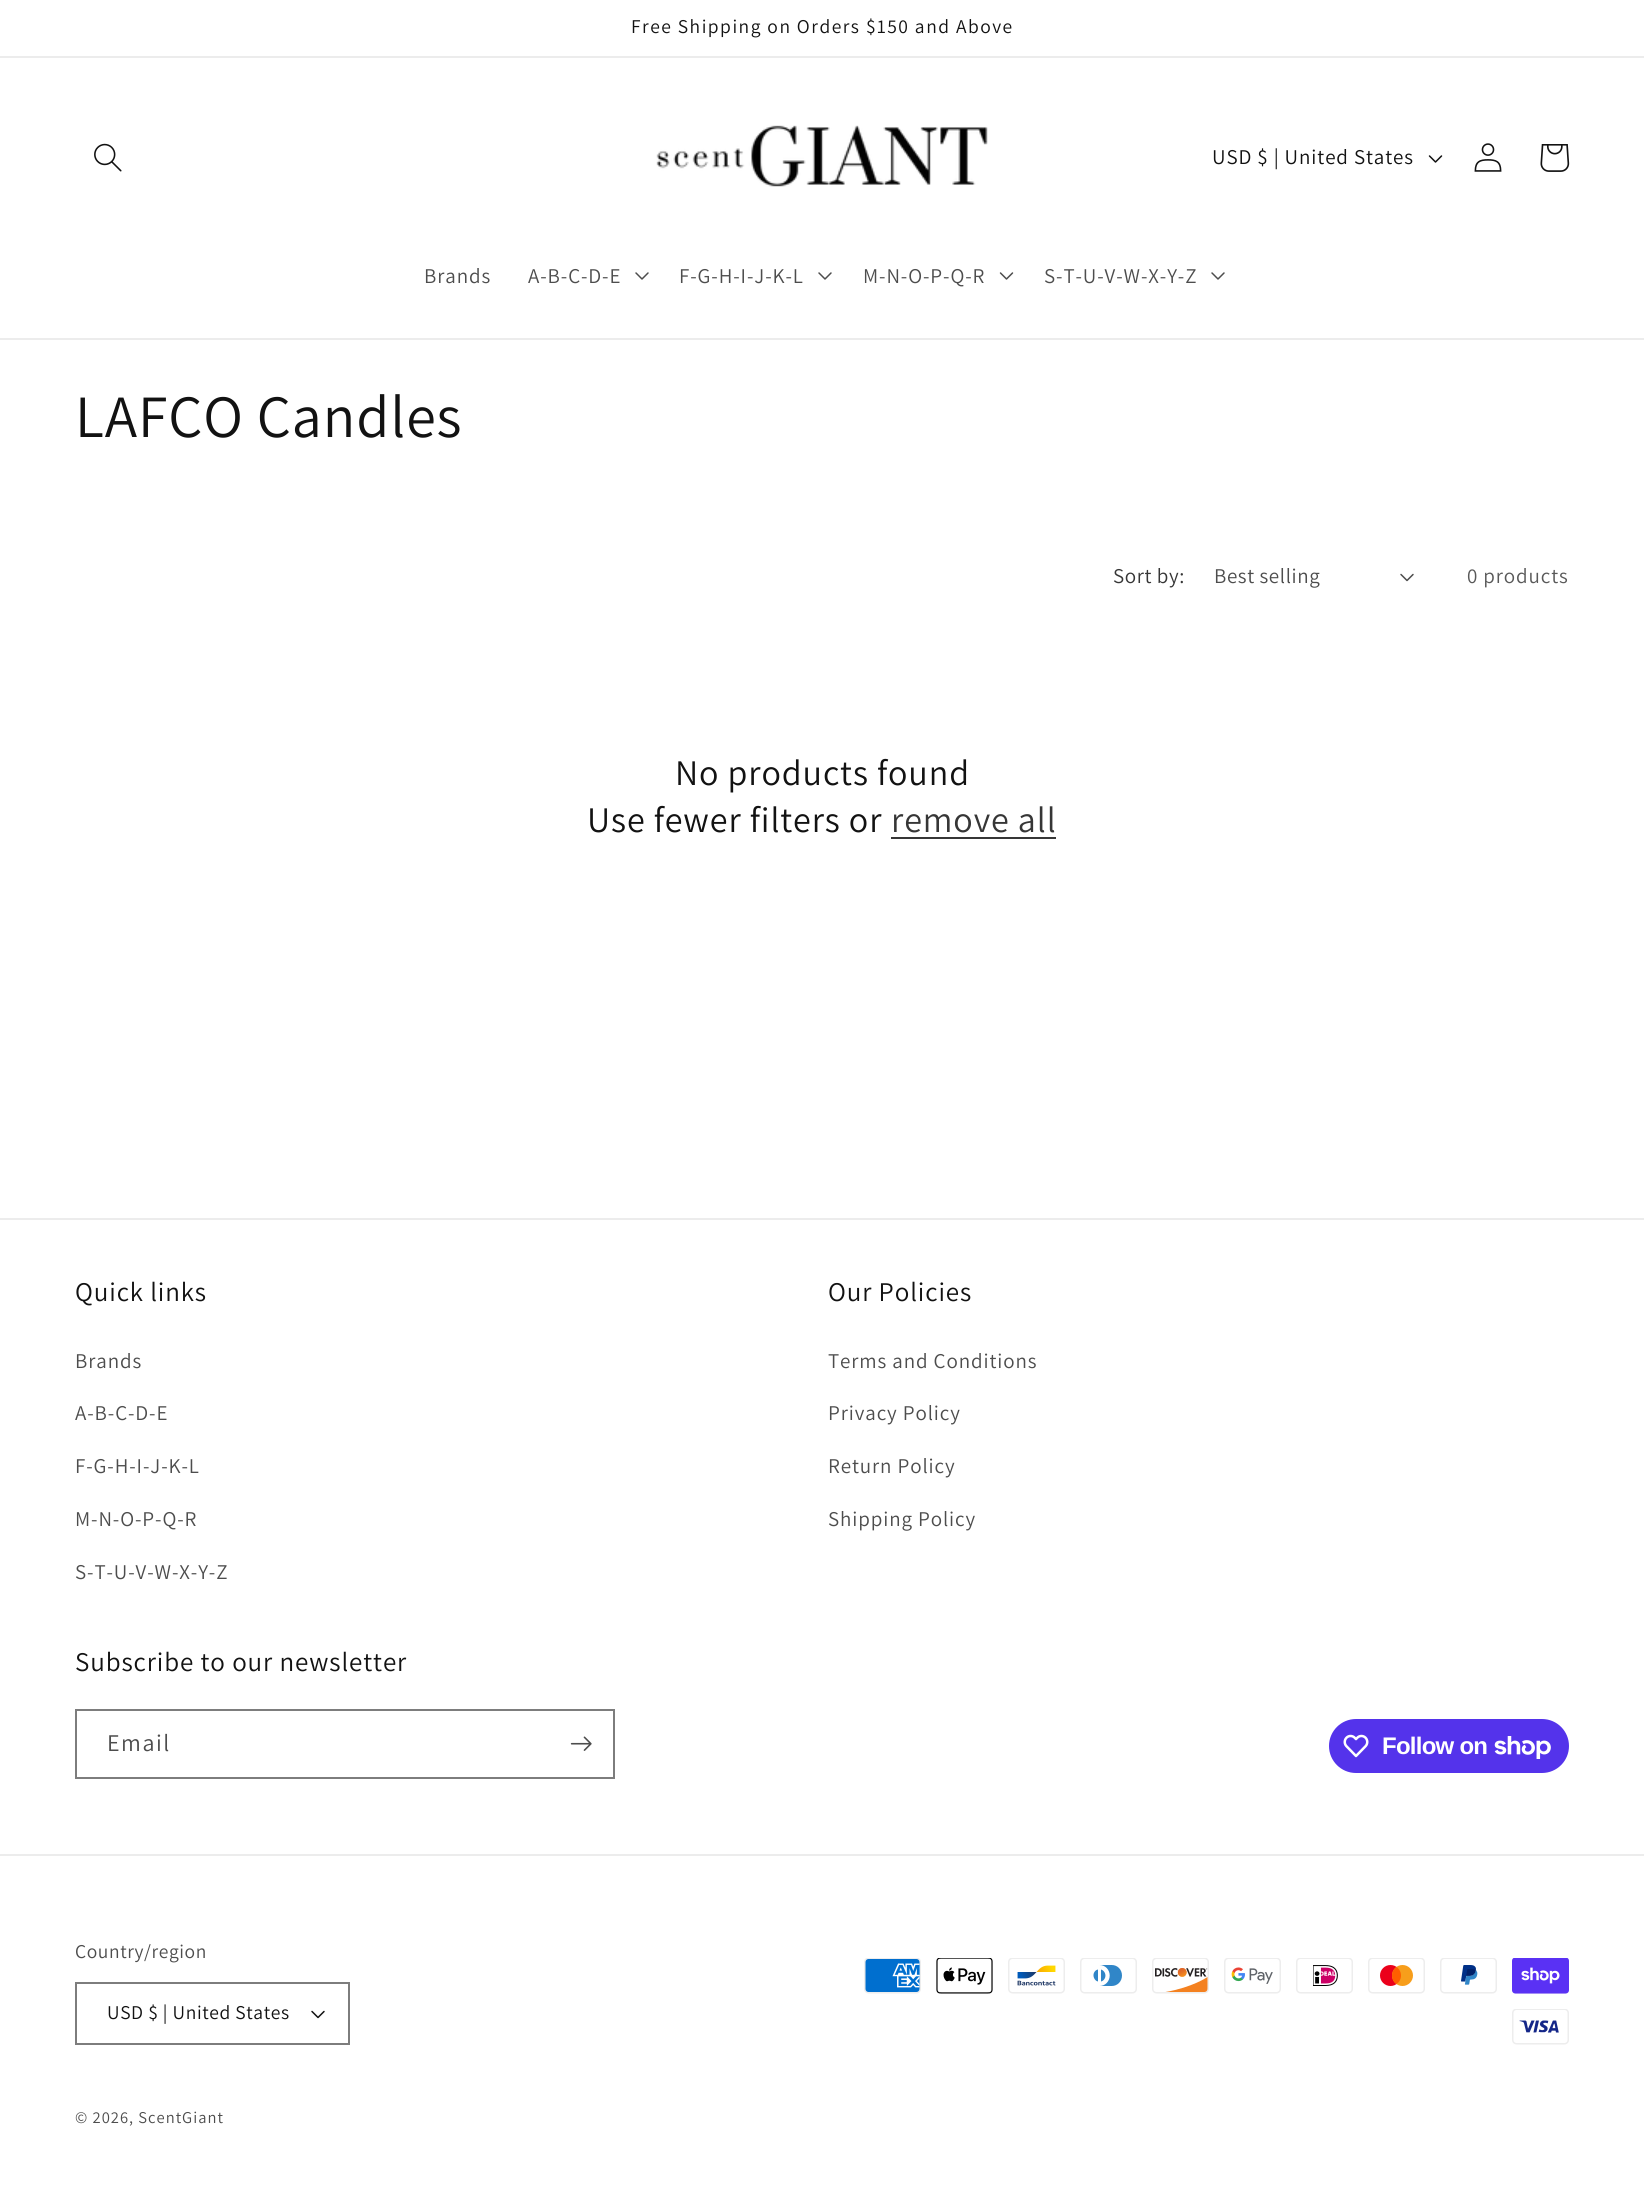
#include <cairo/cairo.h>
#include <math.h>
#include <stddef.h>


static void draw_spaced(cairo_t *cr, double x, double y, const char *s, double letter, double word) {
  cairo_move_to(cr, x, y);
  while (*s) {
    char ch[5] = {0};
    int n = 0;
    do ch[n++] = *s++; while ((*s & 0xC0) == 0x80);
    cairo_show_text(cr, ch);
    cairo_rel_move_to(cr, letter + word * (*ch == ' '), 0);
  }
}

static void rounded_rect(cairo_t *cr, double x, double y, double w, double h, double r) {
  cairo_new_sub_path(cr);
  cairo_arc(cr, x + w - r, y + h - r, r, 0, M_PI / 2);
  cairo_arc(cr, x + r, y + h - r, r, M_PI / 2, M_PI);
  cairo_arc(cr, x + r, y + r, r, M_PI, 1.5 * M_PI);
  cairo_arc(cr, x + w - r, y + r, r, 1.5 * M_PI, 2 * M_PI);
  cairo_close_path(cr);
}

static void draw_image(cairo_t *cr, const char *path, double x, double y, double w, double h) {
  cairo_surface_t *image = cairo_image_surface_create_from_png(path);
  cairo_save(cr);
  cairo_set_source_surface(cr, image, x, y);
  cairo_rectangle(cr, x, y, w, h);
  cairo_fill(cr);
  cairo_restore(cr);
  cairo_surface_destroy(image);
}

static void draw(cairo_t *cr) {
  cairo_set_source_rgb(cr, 1, 1, 1);
  cairo_paint(cr);
  cairo_set_source_rgb(cr, 236 / 255.0, 236 / 255.0, 236 / 255.0);
  cairo_rectangle(cr, 0, 56, 1644, 2);
  cairo_fill(cr);
  cairo_rectangle(cr, 0, 338, 1644, 2);
  cairo_fill(cr);
  draw_image(cr, "images/1.png", 94, 143, 28, 29);
  draw_image(cr, "images/2.png", 656, 125, 332, 62);
  draw_image(cr, "images/3.png", 1428, 155, 15, 8);
  draw_image(cr, "images/4.png", 1474, 143, 28, 29);
  draw_image(cr, "images/5.png", 1540, 144, 30, 28);
  draw_image(cr, "images/6.png", 635, 272, 14, 8);
  draw_image(cr, "images/6.png", 818, 272, 14, 8);
  draw_image(cr, "images/7.png", 999, 272, 15, 8);
  draw_image(cr, "images/6.png", 1211, 272, 14, 8);
  draw_image(cr, "images/8.png", 1400, 573, 14, 9);
  cairo_set_source_rgb(cr, 54 / 255.0, 54 / 255.0, 54 / 255.0);
  cairo_rectangle(cr, 891, 837, 165, 2);
  cairo_fill(cr);
  cairo_set_source_rgb(cr, 236 / 255.0, 236 / 255.0, 236 / 255.0);
  cairo_rectangle(cr, 0, 1218, 1644, 2);
  cairo_fill(cr);
  cairo_rectangle(cr, 76, 1710, 538, 68);
  cairo_set_source_rgb(cr, 125 / 255.0, 125 / 255.0, 125 / 255.0);
  cairo_stroke(cr);
  draw_image(cr, "images/9.png", 570, 1736, 22, 15);
  cairo_set_source_rgb(cr, 84 / 255.0, 51 / 255.0, 235 / 255.0);
  rounded_rect(cr, 1329, 1719, 240, 54, 27);
  cairo_fill(cr);
  draw_image(cr, "images/10.png", 1343, 1734, 26, 24);
  draw_image(cr, "images/11.png", 1494, 1736, 57, 23);
  cairo_set_source_rgb(cr, 236 / 255.0, 236 / 255.0, 236 / 255.0);
  cairo_rectangle(cr, 0, 1854, 1644, 2);
  cairo_fill(cr);
  draw_image(cr, "images/12.png", 311, 2010, 14, 9);
  cairo_rectangle(cr, 76, 1983, 273, 61);
  cairo_set_source_rgb(cr, 125 / 255.0, 125 / 255.0, 125 / 255.0);
  cairo_stroke(cr);
  draw_image(cr, "images/13.png", 864, 1958, 57, 36);
  draw_image(cr, "images/14.png", 936, 1958, 57, 36);
  draw_image(cr, "images/15.png", 1008, 1958, 57, 36);
  draw_image(cr, "images/16.png", 1080, 1958, 57, 36);
  draw_image(cr, "images/17.png", 1152, 1958, 57, 36);
  draw_image(cr, "images/18.png", 1224, 1958, 57, 36);
  draw_image(cr, "images/19.png", 1296, 1958, 57, 36);
  draw_image(cr, "images/20.png", 1368, 1958, 57, 36);
  draw_image(cr, "images/21.png", 1440, 1958, 57, 36);
  draw_image(cr, "images/22.png", 1512, 1958, 57, 36);
  draw_image(cr, "images/23.png", 1512, 2009, 57, 36);
  cairo_select_font_face(cr, "Assistant", CAIRO_FONT_SLANT_NORMAL, CAIRO_FONT_WEIGHT_NORMAL);
  cairo_set_font_size(cr, 19.5);
  cairo_set_source_rgb(cr, 18 / 255.0, 18 / 255.0, 18 / 255.0);
  draw_spaced(cr, 631, 33, "Free Shipping on Orders $150 and Above", 1.5, 0);
  cairo_set_font_size(cr, 21);
  draw_spaced(cr, 1212, 164, "USD $ | United States", 0.9, 0);
  cairo_set_source_rgb(cr, 77 / 255.0, 77 / 255.0, 77 / 255.0);
  draw_spaced(cr, 424, 283, "Brands", 0.9, 0);
  draw_spaced(cr, 528, 283, "A-B-C-D-E", 0.9, 0);
  draw_spaced(cr, 679, 283, "F-G-H-I-J-K-L", 0.9, 0);
  draw_spaced(cr, 863, 283, "M-N-O-P-Q-R", 0.9, 0);
  draw_spaced(cr, 1044, 283, "S-T-U-V-W-X-Y-Z", 0.9, 0);
  cairo_set_font_size(cr, 60);
  cairo_set_source_rgb(cr, 18 / 255.0, 18 / 255.0, 18 / 255.0);
  draw_spaced(cr, 75, 437, "LAFCO Candles", 0.9, 0);
  cairo_set_font_size(cr, 21);
  cairo_set_source_rgb(cr, 54 / 255.0, 54 / 255.0, 54 / 255.0);
  draw_spaced(cr, 1113, 583, "Sort by:", 0.6, 0);
  cairo_set_source_rgb(cr, 77 / 255.0, 77 / 255.0, 77 / 255.0);
  draw_spaced(cr, 1214, 583, "Best selling", 0.6, 0);
  cairo_set_source_rgb(cr, 89 / 255.0, 89 / 255.0, 89 / 255.0);
  draw_spaced(cr, 1467, 583, "0 products", 0.9, 0);
  cairo_set_font_size(cr, 36);
  cairo_set_source_rgb(cr, 18 / 255.0, 18 / 255.0, 18 / 255.0);
  draw_spaced(cr, 675, 785, "No products found", 0.9, 0);
  draw_spaced(cr, 587, 832, "Use fewer filters or", 0.9, 0);
  cairo_set_source_rgb(cr, 54 / 255.0, 54 / 255.0, 54 / 255.0);
  draw_spaced(cr, 891, 832, "remove all", 0.9, 0);
  cairo_set_font_size(cr, 27);
  cairo_set_source_rgb(cr, 18 / 255.0, 18 / 255.0, 18 / 255.0);
  draw_spaced(cr, 75, 1301, "Quick links", 0.9, 0);
  cairo_set_font_size(cr, 21);
  cairo_set_source_rgb(cr, 77 / 255.0, 77 / 255.0, 77 / 255.0);
  draw_spaced(cr, 75, 1368, "Brands", 0.9, 0);
  draw_spaced(cr, 75, 1420, "A-B-C-D-E", 0.9, 0);
  draw_spaced(cr, 75, 1473, "F-G-H-I-J-K-L", 0.9, 0);
  draw_spaced(cr, 75, 1526, "M-N-O-P-Q-R", 0.9, 0);
  draw_spaced(cr, 75, 1579, "S-T-U-V-W-X-Y-Z", 0.9, 0);
  cairo_set_font_size(cr, 27);
  cairo_set_source_rgb(cr, 18 / 255.0, 18 / 255.0, 18 / 255.0);
  draw_spaced(cr, 828, 1301, "Our Policies", 0.9, 0);
  cairo_set_font_size(cr, 21);
  cairo_set_source_rgb(cr, 77 / 255.0, 77 / 255.0, 77 / 255.0);
  draw_spaced(cr, 828, 1368, "Terms and Conditions", 0.9, 0);
  draw_spaced(cr, 828, 1420, "Privacy Policy", 0.9, 0);
  draw_spaced(cr, 828, 1473, "Return Policy", 0.9, 0);
  draw_spaced(cr, 828, 1526, "Shipping Policy", 0.9, 0);
  cairo_set_font_size(cr, 27);
  cairo_set_source_rgb(cr, 18 / 255.0, 18 / 255.0, 18 / 255.0);
  draw_spaced(cr, 75, 1671, "Subscribe to our newsletter", 0.9, 0);
  cairo_set_font_size(cr, 24);
  cairo_set_source_rgb(cr, 77 / 255.0, 77 / 255.0, 77 / 255.0);
  draw_spaced(cr, 107, 1751, "Email", 1.5, 0);
  cairo_select_font_face(cr, "Liberation Sans", CAIRO_FONT_SLANT_NORMAL, CAIRO_FONT_WEIGHT_BOLD);
  cairo_set_source_rgb(cr, 1, 1, 1);
  draw_spaced(cr, 1382, 1754, "Follow on", -0.75, 0);
  cairo_select_font_face(cr, "Assistant", CAIRO_FONT_SLANT_NORMAL, CAIRO_FONT_WEIGHT_NORMAL);
  cairo_set_font_size(cr, 19.5);
  cairo_set_source_rgb(cr, 77 / 255.0, 77 / 255.0, 77 / 255.0);
  draw_spaced(cr, 75, 1958, "Country/region", 0.6, 0);
  cairo_set_source_rgb(cr, 18 / 255.0, 18 / 255.0, 18 / 255.0);
  draw_spaced(cr, 107, 2019, "USD $ | United States", 0.6, 0);
  cairo_set_font_size(cr, 16.5);
  cairo_set_source_rgb(cr, 77 / 255.0, 77 / 255.0, 77 / 255.0);
  draw_spaced(cr, 75, 2123, "© 2026, ScentGiant", 1, 0);
}

int main(void) {
  cairo_surface_t *surface = cairo_image_surface_create(CAIRO_FORMAT_RGB24, 1644, 2187);
  cairo_t *cr = cairo_create(surface);
  cairo_font_options_t *options = cairo_font_options_create();
  cairo_font_options_set_hint_metrics(options, CAIRO_HINT_METRICS_OFF);
  cairo_font_options_set_hint_style(options, CAIRO_HINT_STYLE_NONE);
  cairo_set_font_options(cr, options);
  cairo_set_miter_limit(cr, 4);
  draw(cr);
  cairo_surface_write_to_png(surface, "out.png");
  cairo_font_options_destroy(options);
  cairo_destroy(cr);
  cairo_surface_destroy(surface);
  return 0;
}
